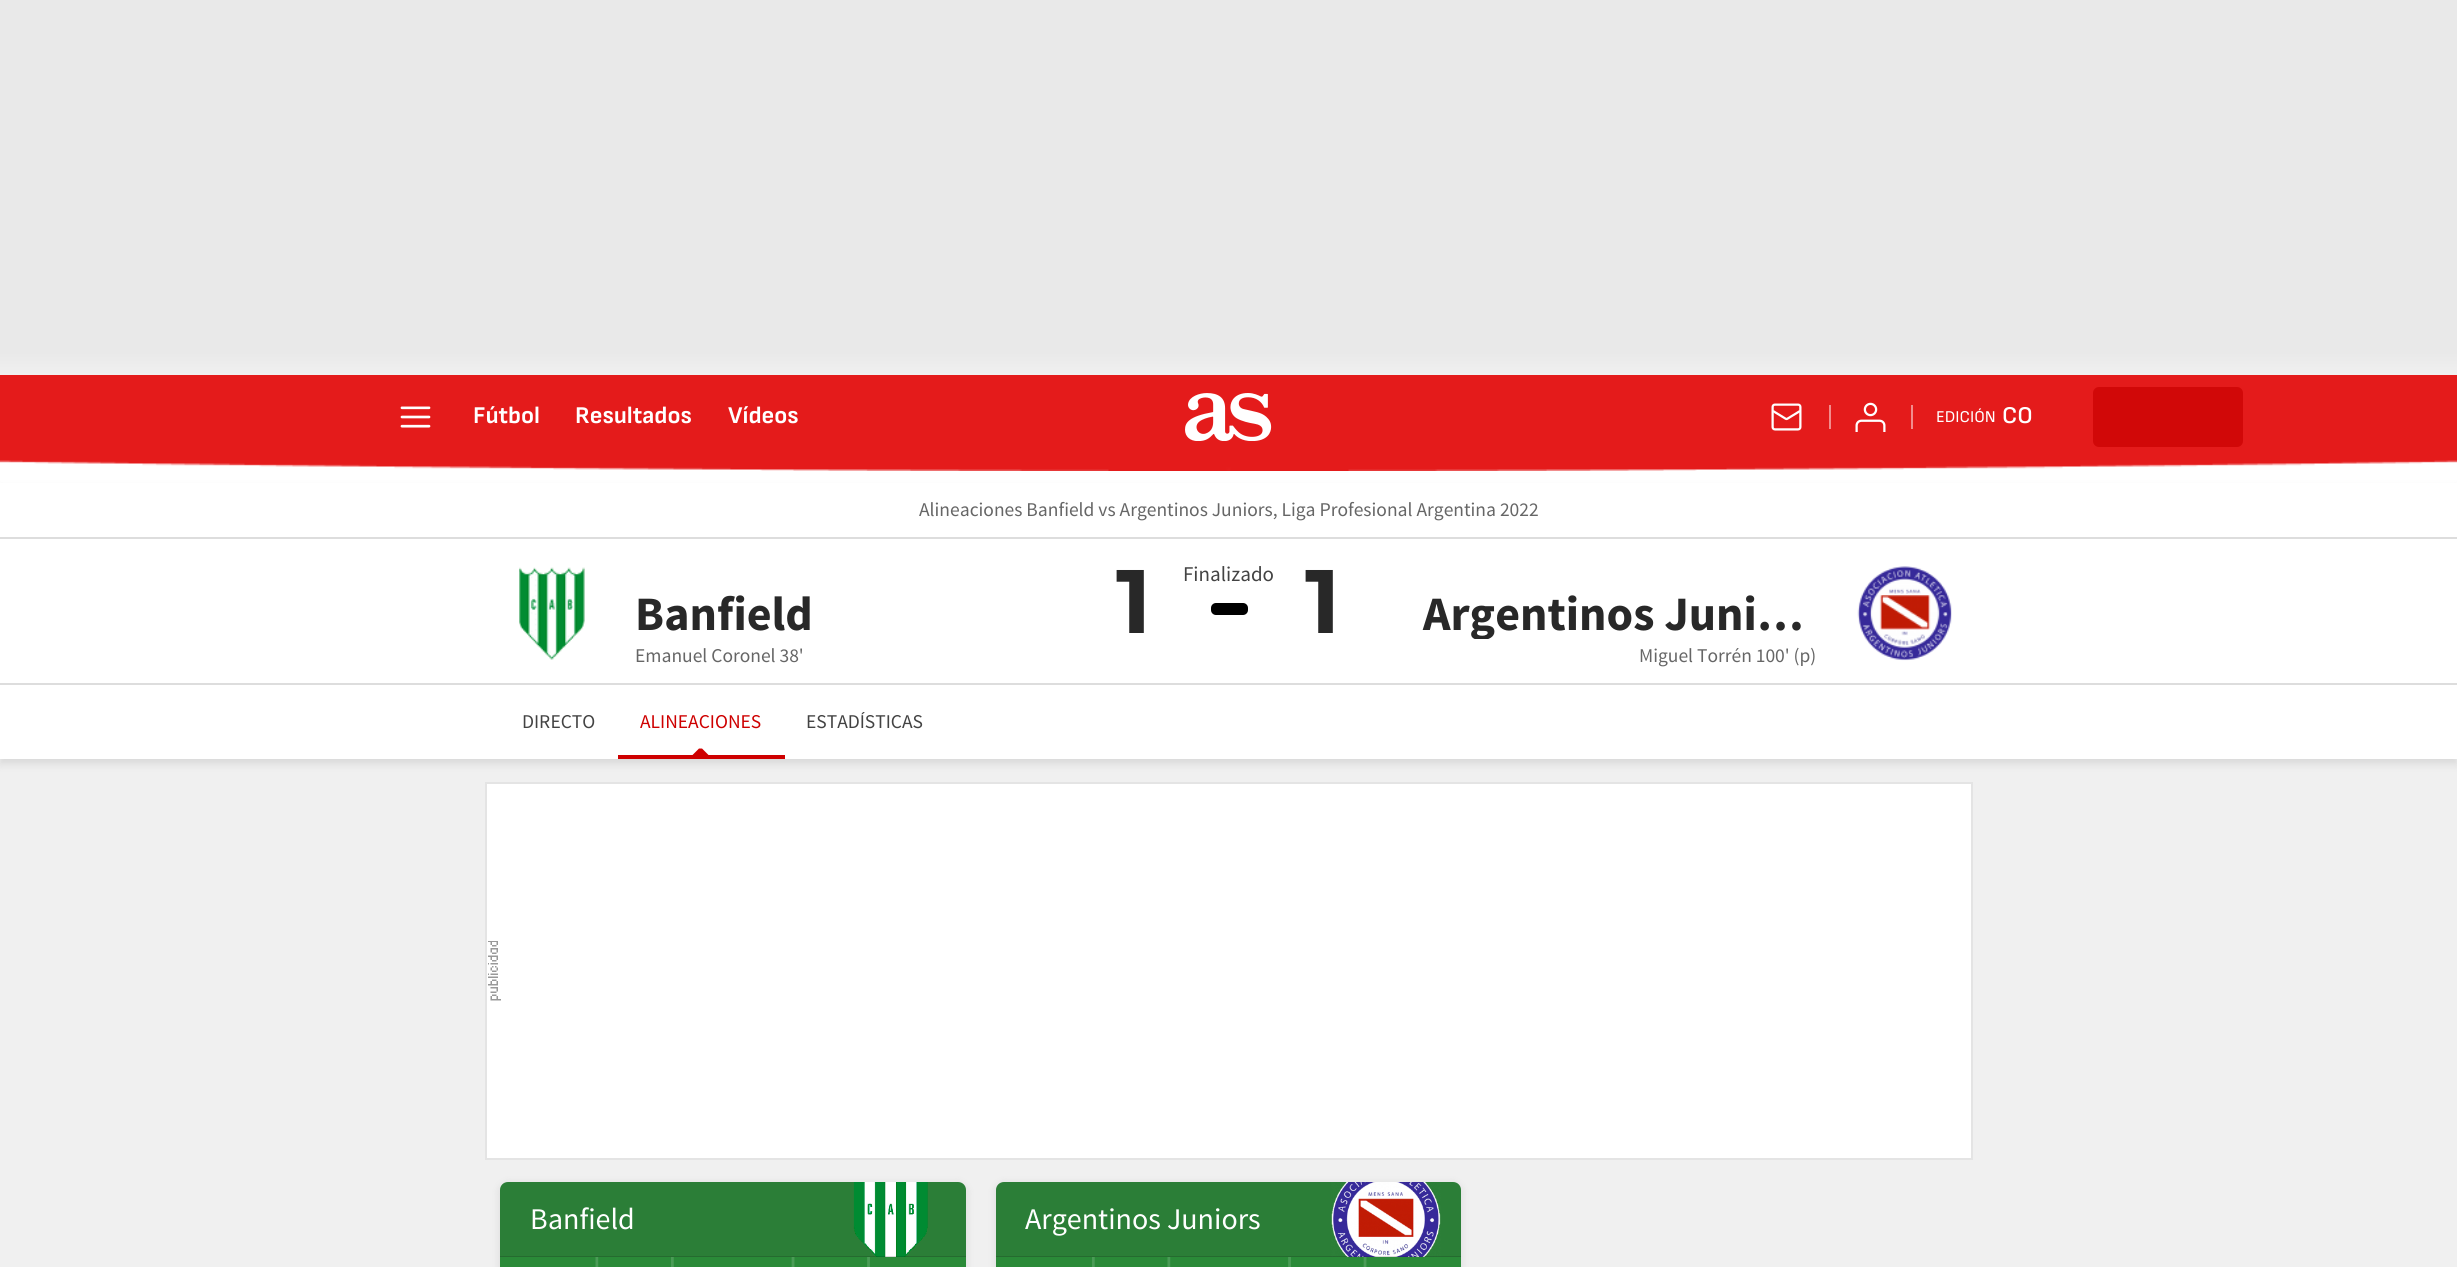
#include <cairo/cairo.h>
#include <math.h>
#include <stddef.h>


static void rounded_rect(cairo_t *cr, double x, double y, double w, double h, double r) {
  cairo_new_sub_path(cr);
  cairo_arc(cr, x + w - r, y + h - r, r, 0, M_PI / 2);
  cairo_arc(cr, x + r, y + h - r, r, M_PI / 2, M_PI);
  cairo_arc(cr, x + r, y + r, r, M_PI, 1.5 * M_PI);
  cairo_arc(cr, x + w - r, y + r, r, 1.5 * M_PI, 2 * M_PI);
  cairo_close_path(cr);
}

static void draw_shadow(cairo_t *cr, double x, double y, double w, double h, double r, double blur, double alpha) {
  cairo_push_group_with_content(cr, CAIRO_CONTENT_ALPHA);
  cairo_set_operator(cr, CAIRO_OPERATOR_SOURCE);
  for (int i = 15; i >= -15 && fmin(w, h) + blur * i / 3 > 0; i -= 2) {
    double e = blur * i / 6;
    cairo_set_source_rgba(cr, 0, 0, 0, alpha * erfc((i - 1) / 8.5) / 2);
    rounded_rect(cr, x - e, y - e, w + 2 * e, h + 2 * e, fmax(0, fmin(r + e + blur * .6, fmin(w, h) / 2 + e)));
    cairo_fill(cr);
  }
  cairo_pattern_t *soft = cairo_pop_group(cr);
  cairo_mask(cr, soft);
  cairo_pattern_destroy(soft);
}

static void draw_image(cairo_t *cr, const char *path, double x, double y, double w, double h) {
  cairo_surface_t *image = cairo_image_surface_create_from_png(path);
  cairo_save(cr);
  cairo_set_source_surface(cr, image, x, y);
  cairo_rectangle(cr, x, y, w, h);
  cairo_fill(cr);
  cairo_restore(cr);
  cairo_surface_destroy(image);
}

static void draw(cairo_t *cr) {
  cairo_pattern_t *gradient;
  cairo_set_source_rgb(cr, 1, 1, 1);
  cairo_paint(cr);
  gradient = cairo_pattern_create_linear(1229, 375, 1229, 0);
  cairo_pattern_add_color_stop_rgba(gradient, 0, 240 / 255.0, 240 / 255.0, 240 / 255.0, 1);
  cairo_pattern_add_color_stop_rgba(gradient, 0.06, 233 / 255.0, 233 / 255.0, 233 / 255.0, 1);
  cairo_set_source(cr, gradient);
  cairo_pattern_destroy(gradient);
  cairo_rectangle(cr, 0, 0, 2457, 375);
  cairo_fill(cr);
  draw_image(cr, "images/1.png", 0, 375, 2457, 96);
  draw_image(cr, "images/2.png", 400, 406, 31, 22);
  draw_image(cr, "images/3.png", 1185, 393, 87, 48);
  draw_image(cr, "images/4.png", 1771, 403, 31, 28);
  cairo_set_source_rgb(cr, 242 / 255.0, 141 / 255.0, 141 / 255.0);
  cairo_rectangle(cr, 1829, 405, 2, 24);
  cairo_fill(cr);
  draw_image(cr, "images/5.png", 1855, 402, 31, 30);
  cairo_rectangle(cr, 1911, 405, 2, 24);
  cairo_fill(cr);
  cairo_set_source_rgb(cr, 209 / 255.0, 8 / 255.0, 8 / 255.0);
  rounded_rect(cr, 2093, 387, 150, 60, 6);
  cairo_fill(cr);
  cairo_set_source_rgb(cr, 240 / 255.0, 240 / 255.0, 240 / 255.0);
  cairo_rectangle(cr, 0, 759, 2457, 508);
  cairo_fill(cr);
  cairo_set_source_rgb(cr, 0, 0, 0);
  draw_shadow(cr, 0, 488, 2457, 276, 0, 4.5, 0.1);
  cairo_set_source_rgb(cr, 1, 1, 1);
  cairo_rectangle(cr, 0, 483, 2457, 276);
  cairo_fill(cr);
  cairo_set_source_rgb(cr, 221 / 255.0, 221 / 255.0, 221 / 255.0);
  cairo_rectangle(cr, 0, 537, 2457, 2);
  cairo_fill(cr);
  draw_image(cr, "images/6.png", 519, 567, 66, 93);
  cairo_set_source_rgb(cr, 0, 0, 0);
  rounded_rect(cr, 1211, 603, 37, 12, 5);
  cairo_fill(cr);
  draw_image(cr, "images/7.png", 1857, 566, 95, 95);
  cairo_set_source_rgb(cr, 221 / 255.0, 221 / 255.0, 221 / 255.0);
  cairo_rectangle(cr, 0, 683, 2457, 2);
  cairo_fill(cr);
  cairo_set_source_rgb(cr, 206 / 255.0, 0, 0);
  cairo_new_path(cr);
  cairo_move_to(cr, 712.5, 759);
  cairo_line_to(cr, 688.5, 759);
  cairo_line_to(cr, 699, 748.5);
  cairo_line_to(cr, 702, 748.5);
  cairo_close_path(cr);
  cairo_fill(cr);
  cairo_rectangle(cr, 618, 755, 167, 4);
  cairo_fill(cr);
  cairo_set_source_rgb(cr, 1, 1, 1);
  cairo_rectangle(cr, 487, 784, 1484, 374);
  cairo_fill(cr);
  draw_image(cr, "images/8.png", 488, 941, 13, 60);
  cairo_rectangle(cr, 486, 783, 1486, 376);
  cairo_set_source_rgb(cr, 228 / 255.0, 228 / 255.0, 228 / 255.0);
  cairo_stroke(cr);
  cairo_set_source_rgb(cr, 0, 0, 0);
  draw_shadow(cr, 500, 1184, 466, 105, 8, 4.5, 0.1);
  cairo_set_source_rgb(cr, 43 / 255.0, 126 / 255.0, 55 / 255.0);
  cairo_new_path(cr);
  cairo_move_to(cr, 508, 1182);
  cairo_line_to(cr, 958, 1182);
  cairo_curve_to(cr, 962.5, 1182, 966, 1185.5, 966, 1190);
  cairo_line_to(cr, 966, 1257);
  cairo_line_to(cr, 500, 1257);
  cairo_line_to(cr, 500, 1190);
  cairo_curve_to(cr, 500, 1185.5, 503.5, 1182, 508, 1182);
  cairo_close_path(cr);
  cairo_fill(cr);
  draw_image(cr, "images/9.png", 853, 1182, 75, 75);
  cairo_set_source_rgba(cr, 0, 0, 0, 0.15);
  cairo_rectangle(cr, 500, 1256, 466, 1);
  cairo_fill(cr);
  draw_image(cr, "images/10.png", 500, 1257, 466, 10);
  cairo_set_source_rgb(cr, 0, 0, 0);
  draw_shadow(cr, 996, 1184, 465, 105, 8, 4.5, 0.1);
  cairo_set_source_rgb(cr, 43 / 255.0, 126 / 255.0, 55 / 255.0);
  cairo_new_path(cr);
  cairo_move_to(cr, 1004, 1182);
  cairo_line_to(cr, 1453, 1182);
  cairo_curve_to(cr, 1457.5, 1182, 1461, 1185.5, 1461, 1190);
  cairo_line_to(cr, 1461, 1257);
  cairo_line_to(cr, 996, 1257);
  cairo_line_to(cr, 996, 1190);
  cairo_curve_to(cr, 996, 1185.5, 999.5, 1182, 1004, 1182);
  cairo_close_path(cr);
  cairo_fill(cr);
  draw_image(cr, "images/11.png", 1331, 1182, 110, 75);
  cairo_set_source_rgba(cr, 0, 0, 0, 0.15);
  cairo_rectangle(cr, 996, 1256, 465, 1);
  cairo_fill(cr);
  draw_image(cr, "images/12.png", 996, 1257, 465, 10);
  cairo_select_font_face(cr, "Sofia Sans", CAIRO_FONT_SLANT_NORMAL, CAIRO_FONT_WEIGHT_BOLD);
  cairo_set_font_size(cr, 24);
  cairo_set_source_rgb(cr, 1, 1, 1);
  cairo_move_to(cr, 473, 423);
  cairo_show_text(cr, "Fútbol");
  cairo_move_to(cr, 575, 423);
  cairo_show_text(cr, "Resultados");
  cairo_move_to(cr, 728, 423);
  cairo_show_text(cr, "Vídeos");
  cairo_select_font_face(cr, "Sofia Sans", CAIRO_FONT_SLANT_NORMAL, CAIRO_FONT_WEIGHT_NORMAL);
  cairo_set_font_size(cr, 16.5);
  cairo_move_to(cr, 1936, 422);
  cairo_show_text(cr, "EDICIÓN");
  cairo_select_font_face(cr, "Sofia Sans SemiBold", CAIRO_FONT_SLANT_NORMAL, CAIRO_FONT_WEIGHT_NORMAL);
  cairo_set_font_size(cr, 24);
  cairo_move_to(cr, 2002, 423);
  cairo_show_text(cr, "CO");
  cairo_select_font_face(cr, "Source Sans Pro", CAIRO_FONT_SLANT_NORMAL, CAIRO_FONT_WEIGHT_NORMAL);
  cairo_set_font_size(cr, 19.5);
  cairo_set_source_rgb(cr, 102 / 255.0, 102 / 255.0, 102 / 255.0);
  cairo_move_to(cr, 919, 516);
  cairo_show_text(cr, "Alineaciones Banfield vs Argentinos Juniors, Liga Profesional Argentina 2022");
  cairo_select_font_face(cr, "Source Sans Pro", CAIRO_FONT_SLANT_NORMAL, CAIRO_FONT_WEIGHT_BOLD);
  cairo_set_font_size(cr, 48);
  cairo_set_source_rgb(cr, 40 / 255.0, 40 / 255.0, 40 / 255.0);
  cairo_move_to(cr, 635, 630);
  cairo_show_text(cr, "Banfield");
  cairo_select_font_face(cr, "Montserrat", CAIRO_FONT_SLANT_NORMAL, CAIRO_FONT_WEIGHT_BOLD);
  cairo_set_font_size(cr, 90);
  cairo_move_to(cr, 1116, 633);
  cairo_show_text(cr, "1");
  cairo_select_font_face(cr, "Source Sans Pro", CAIRO_FONT_SLANT_NORMAL, CAIRO_FONT_WEIGHT_NORMAL);
  cairo_set_font_size(cr, 19.5);
  cairo_set_source_rgb(cr, 102 / 255.0, 102 / 255.0, 102 / 255.0);
  cairo_move_to(cr, 635, 662);
  cairo_show_text(cr, "Emanuel Coronel 38'");
  cairo_set_font_size(cr, 21);
  cairo_set_source_rgb(cr, 67 / 255.0, 67 / 255.0, 67 / 255.0);
  cairo_move_to(cr, 1183, 581);
  cairo_show_text(cr, "Finalizado");
  cairo_select_font_face(cr, "Montserrat", CAIRO_FONT_SLANT_NORMAL, CAIRO_FONT_WEIGHT_BOLD);
  cairo_set_font_size(cr, 90);
  cairo_set_source_rgb(cr, 40 / 255.0, 40 / 255.0, 40 / 255.0);
  cairo_move_to(cr, 1305, 633);
  cairo_show_text(cr, "1");
  cairo_save(cr);
  cairo_rectangle(cr, 1422, 588, 431, 51);
  cairo_clip(cr);
  cairo_select_font_face(cr, "Source Sans Pro", CAIRO_FONT_SLANT_NORMAL, CAIRO_FONT_WEIGHT_BOLD);
  cairo_set_font_size(cr, 48);
  cairo_move_to(cr, 1423, 630);
  cairo_show_text(cr, "Argentinos Juni…");
  cairo_restore(cr);
  cairo_select_font_face(cr, "Source Sans Pro", CAIRO_FONT_SLANT_NORMAL, CAIRO_FONT_WEIGHT_NORMAL);
  cairo_set_font_size(cr, 19.5);
  cairo_set_source_rgb(cr, 102 / 255.0, 102 / 255.0, 102 / 255.0);
  cairo_move_to(cr, 1639, 662);
  cairo_show_text(cr, "Miguel Torrén 100' (p)");
  cairo_set_source_rgb(cr, 67 / 255.0, 67 / 255.0, 67 / 255.0);
  cairo_move_to(cr, 522, 728);
  cairo_show_text(cr, "DIRECTO");
  cairo_set_source_rgb(cr, 206 / 255.0, 0, 0);
  cairo_move_to(cr, 640, 728);
  cairo_show_text(cr, "ALINEACIONES");
  cairo_set_source_rgb(cr, 67 / 255.0, 67 / 255.0, 67 / 255.0);
  cairo_move_to(cr, 806, 728);
  cairo_show_text(cr, "ESTADÍSTICAS");
  cairo_set_font_size(cr, 30);
  cairo_set_source_rgb(cr, 1, 1, 1);
  cairo_move_to(cr, 530, 1229);
  cairo_show_text(cr, "Banfield");
  cairo_move_to(cr, 1025, 1229);
  cairo_show_text(cr, "Argentinos Juniors");
}

int main(void) {
  cairo_surface_t *surface = cairo_image_surface_create(CAIRO_FORMAT_RGB24, 2457, 1267);
  cairo_t *cr = cairo_create(surface);
  cairo_font_options_t *options = cairo_font_options_create();
  cairo_font_options_set_hint_metrics(options, CAIRO_HINT_METRICS_OFF);
  cairo_font_options_set_hint_style(options, CAIRO_HINT_STYLE_NONE);
  cairo_set_font_options(cr, options);
  cairo_set_miter_limit(cr, 4);
  draw(cr);
  cairo_surface_write_to_png(surface, "out.png");
  cairo_font_options_destroy(options);
  cairo_destroy(cr);
  cairo_surface_destroy(surface);
  return 0;
}
